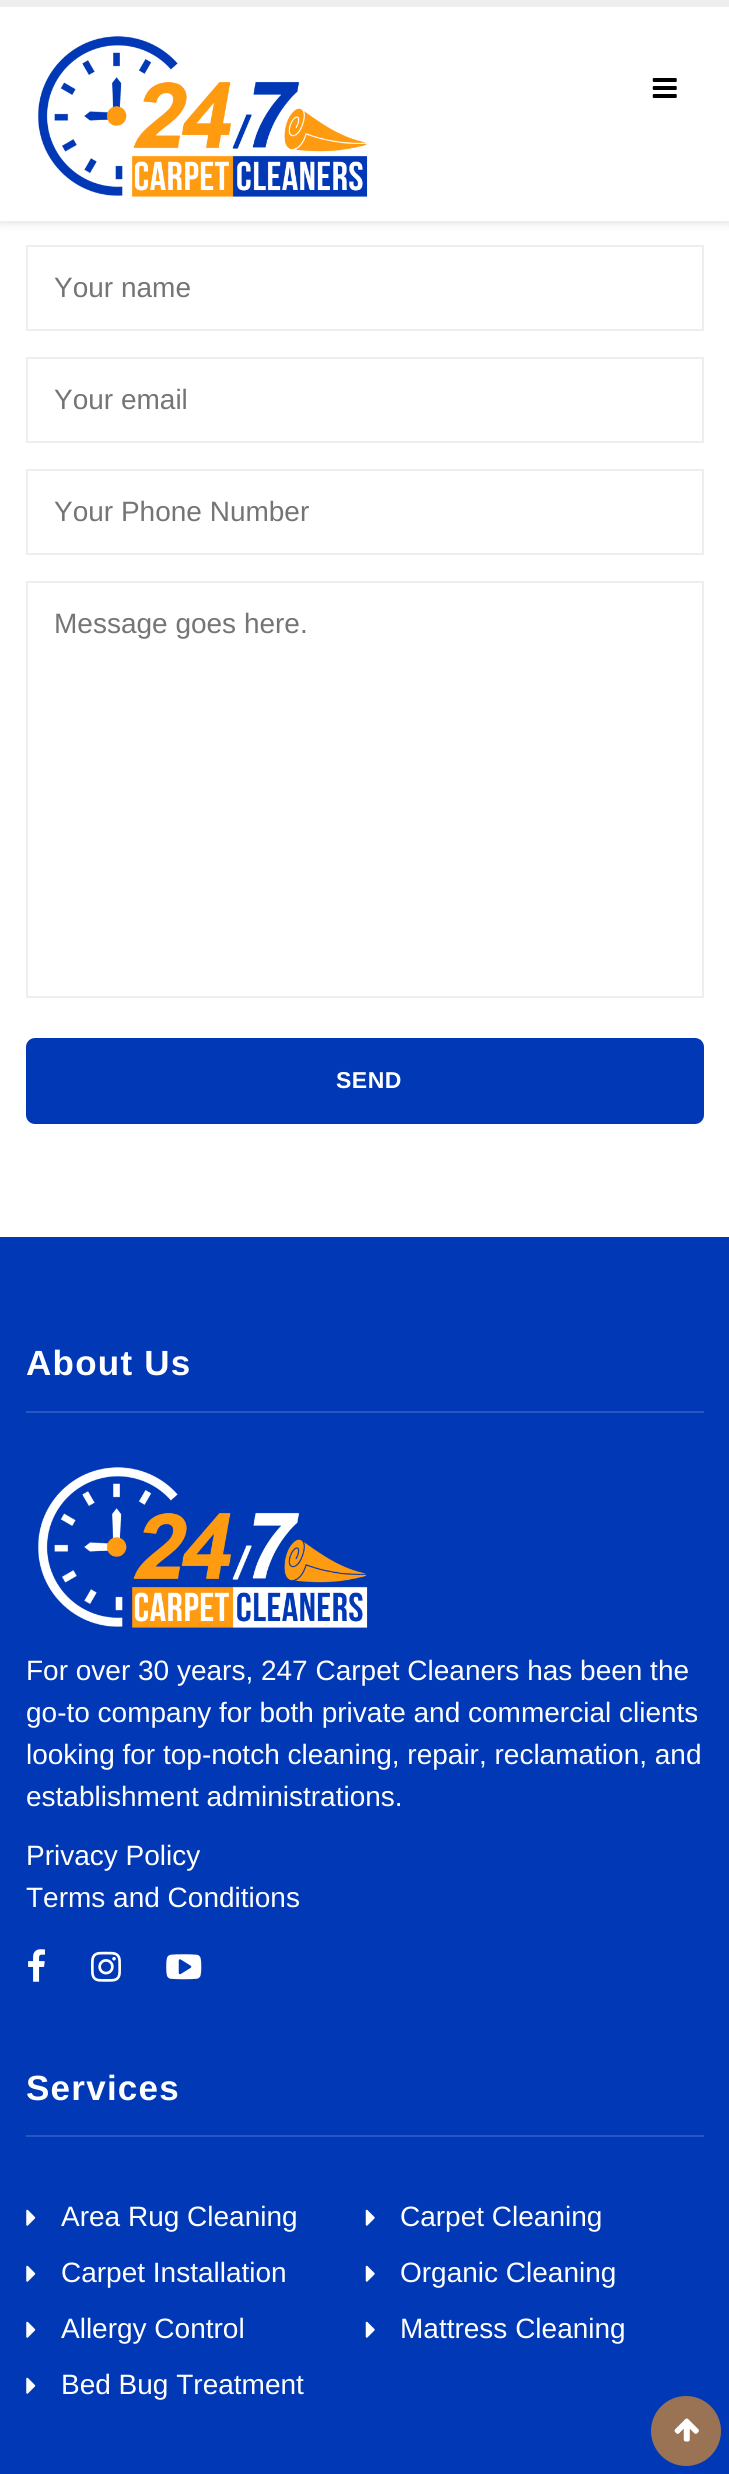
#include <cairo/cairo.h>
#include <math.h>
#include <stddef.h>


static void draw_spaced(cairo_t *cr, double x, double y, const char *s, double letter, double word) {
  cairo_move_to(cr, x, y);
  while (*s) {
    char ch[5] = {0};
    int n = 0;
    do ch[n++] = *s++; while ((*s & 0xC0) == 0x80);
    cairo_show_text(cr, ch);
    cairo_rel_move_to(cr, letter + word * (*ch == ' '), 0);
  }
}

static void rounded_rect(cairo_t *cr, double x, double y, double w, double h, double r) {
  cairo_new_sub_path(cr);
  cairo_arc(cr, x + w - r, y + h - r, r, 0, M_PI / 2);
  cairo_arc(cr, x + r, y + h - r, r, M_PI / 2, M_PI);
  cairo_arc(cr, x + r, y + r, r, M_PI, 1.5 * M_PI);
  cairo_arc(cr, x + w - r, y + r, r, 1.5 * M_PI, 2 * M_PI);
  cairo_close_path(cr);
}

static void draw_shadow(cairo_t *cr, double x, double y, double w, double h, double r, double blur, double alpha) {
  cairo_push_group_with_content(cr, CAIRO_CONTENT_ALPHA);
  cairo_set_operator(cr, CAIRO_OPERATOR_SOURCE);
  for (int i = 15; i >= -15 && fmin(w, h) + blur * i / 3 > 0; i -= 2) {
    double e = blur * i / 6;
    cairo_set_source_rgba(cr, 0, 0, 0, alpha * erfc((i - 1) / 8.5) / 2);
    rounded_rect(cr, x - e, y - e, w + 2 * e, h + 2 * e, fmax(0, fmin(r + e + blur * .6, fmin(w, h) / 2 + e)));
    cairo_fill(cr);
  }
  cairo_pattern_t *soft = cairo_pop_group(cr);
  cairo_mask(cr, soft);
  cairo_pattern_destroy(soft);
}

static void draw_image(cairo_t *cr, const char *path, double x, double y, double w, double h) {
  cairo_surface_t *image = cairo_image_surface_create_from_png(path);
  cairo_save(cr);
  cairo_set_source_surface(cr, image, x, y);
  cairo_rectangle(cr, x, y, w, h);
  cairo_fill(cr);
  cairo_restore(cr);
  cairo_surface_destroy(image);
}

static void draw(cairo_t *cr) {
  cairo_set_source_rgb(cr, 1, 1, 1);
  cairo_paint(cr);
  cairo_set_source_rgb(cr, 0, 0, 0);
  draw_shadow(cr, 0, 4, 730, 220, 0, 4.5, 0.1);
  cairo_set_source_rgb(cr, 1, 1, 1);
  cairo_rectangle(cr, 0, 7, 729, 214);
  cairo_fill(cr);
  cairo_set_source_rgb(cr, 238 / 255.0, 238 / 255.0, 238 / 255.0);
  cairo_rectangle(cr, 0, 0, 729, 7);
  cairo_fill(cr);
  draw_image(cr, "images/1.png", 38, 36, 330, 161);
  draw_image(cr, "images/2.png", 652, 78, 25, 20);
  cairo_rectangle(cr, 27, 246, 676, 84);
  cairo_stroke(cr);
  cairo_rectangle(cr, 27, 358, 676, 84);
  cairo_stroke(cr);
  cairo_rectangle(cr, 27, 470, 676, 84);
  cairo_stroke(cr);
  cairo_rectangle(cr, 27, 582, 676, 415);
  cairo_stroke(cr);
  cairo_set_source_rgb(cr, 1 / 255.0, 56 / 255.0, 182 / 255.0);
  rounded_rect(cr, 28, 1040, 674, 82, 7);
  cairo_fill_preserve(cr);
  cairo_set_line_width(cr, 4);
  cairo_stroke(cr);
  cairo_set_source_rgb(cr, 1 / 255.0, 56 / 255.0, 181 / 255.0);
  cairo_rectangle(cr, 0, 1237, 729, 1237);
  cairo_fill(cr);
  cairo_set_source_rgb(cr, 39 / 255.0, 86 / 255.0, 192 / 255.0);
  cairo_rectangle(cr, 26, 1411, 678, 2);
  cairo_fill(cr);
  draw_image(cr, "images/3.png", 38, 1467, 330, 161);
  draw_image(cr, "images/4.png", 28, 1949, 17, 33);
  draw_image(cr, "images/5.png", 91, 1951, 30, 31);
  draw_image(cr, "images/6.png", 166, 1954, 36, 26);
  cairo_rectangle(cr, 26, 2135, 678, 2);
  cairo_fill(cr);
  draw_image(cr, "images/7.png", 26, 2209, 10, 17);
  draw_image(cr, "images/8.png", 365, 2209, 10, 17);
  draw_image(cr, "images/7.png", 26, 2265, 10, 17);
  draw_image(cr, "images/8.png", 365, 2265, 10, 17);
  draw_image(cr, "images/7.png", 26, 2321, 10, 17);
  draw_image(cr, "images/8.png", 365, 2321, 10, 17);
  draw_image(cr, "images/7.png", 26, 2377, 10, 17);
  cairo_set_source_rgb(cr, 153 / 255.0, 115 / 255.0, 83 / 255.0);
  cairo_arc(cr, 686, 2431, 35, 0, 2 * M_PI);
  cairo_fill(cr);
  draw_image(cr, "images/9.png", 674, 2418, 25, 24);
  cairo_select_font_face(cr, "Liberation Sans", CAIRO_FONT_SLANT_NORMAL, CAIRO_FONT_WEIGHT_NORMAL);
  cairo_set_font_size(cr, 28);
  cairo_set_source_rgb(cr, 117 / 255.0, 117 / 255.0, 117 / 255.0);
  cairo_move_to(cr, 54, 297);
  cairo_show_text(cr, "Your name");
  cairo_move_to(cr, 54, 409);
  cairo_show_text(cr, "Your email");
  cairo_move_to(cr, 54, 521);
  cairo_show_text(cr, "Your Phone Number");
  cairo_move_to(cr, 54, 633);
  cairo_show_text(cr, "Message goes here.");
  cairo_select_font_face(cr, "Liberation Sans", CAIRO_FONT_SLANT_NORMAL, CAIRO_FONT_WEIGHT_BOLD);
  cairo_set_font_size(cr, 23);
  cairo_set_source_rgb(cr, 1, 1, 1);
  draw_spaced(cr, 336, 1088, "SEND", 0.5, 0);
  cairo_set_font_size(cr, 35);
  draw_spaced(cr, 26, 1375, "About Us", 1.25, 0);
  cairo_select_font_face(cr, "Liberation Sans", CAIRO_FONT_SLANT_NORMAL, CAIRO_FONT_WEIGHT_NORMAL);
  cairo_set_font_size(cr, 28);
  cairo_move_to(cr, 26, 1680);
  cairo_show_text(cr, "For over 30 years, 247 Carpet Cleaners has been the");
  cairo_move_to(cr, 26, 1722);
  cairo_show_text(cr, "go-to company for both private and commercial clients");
  cairo_move_to(cr, 26, 1764);
  cairo_show_text(cr, "looking for top-notch cleaning, repair, reclamation, and");
  cairo_move_to(cr, 26, 1806);
  cairo_show_text(cr, "establishment administrations.");
  cairo_move_to(cr, 26, 1865);
  cairo_show_text(cr, "Privacy Policy");
  cairo_move_to(cr, 26, 1907);
  cairo_show_text(cr, "Terms and Conditions");
  cairo_select_font_face(cr, "Liberation Sans", CAIRO_FONT_SLANT_NORMAL, CAIRO_FONT_WEIGHT_BOLD);
  cairo_set_font_size(cr, 35);
  draw_spaced(cr, 26, 2100, "Services", 1.25, 0);
  cairo_select_font_face(cr, "Liberation Sans", CAIRO_FONT_SLANT_NORMAL, CAIRO_FONT_WEIGHT_NORMAL);
  cairo_set_font_size(cr, 28);
  cairo_move_to(cr, 61, 2226);
  cairo_show_text(cr, "Area Rug Cleaning");
  cairo_move_to(cr, 400, 2226);
  cairo_show_text(cr, "Carpet Cleaning");
  cairo_move_to(cr, 61, 2282);
  cairo_show_text(cr, "Carpet Installation");
  cairo_move_to(cr, 400, 2282);
  cairo_show_text(cr, "Organic Cleaning");
  cairo_move_to(cr, 61, 2338);
  cairo_show_text(cr, "Allergy Control");
  cairo_move_to(cr, 400, 2338);
  cairo_show_text(cr, "Mattress Cleaning");
  cairo_move_to(cr, 61, 2394);
  cairo_show_text(cr, "Bed Bug Treatment");
}

int main(void) {
  cairo_surface_t *surface = cairo_image_surface_create(CAIRO_FORMAT_RGB24, 729, 2474);
  cairo_t *cr = cairo_create(surface);
  cairo_font_options_t *options = cairo_font_options_create();
  cairo_font_options_set_hint_metrics(options, CAIRO_HINT_METRICS_OFF);
  cairo_font_options_set_hint_style(options, CAIRO_HINT_STYLE_NONE);
  cairo_set_font_options(cr, options);
  cairo_set_miter_limit(cr, 4);
  draw(cr);
  cairo_surface_write_to_png(surface, "out.png");
  cairo_font_options_destroy(options);
  cairo_destroy(cr);
  cairo_surface_destroy(surface);
  return 0;
}
